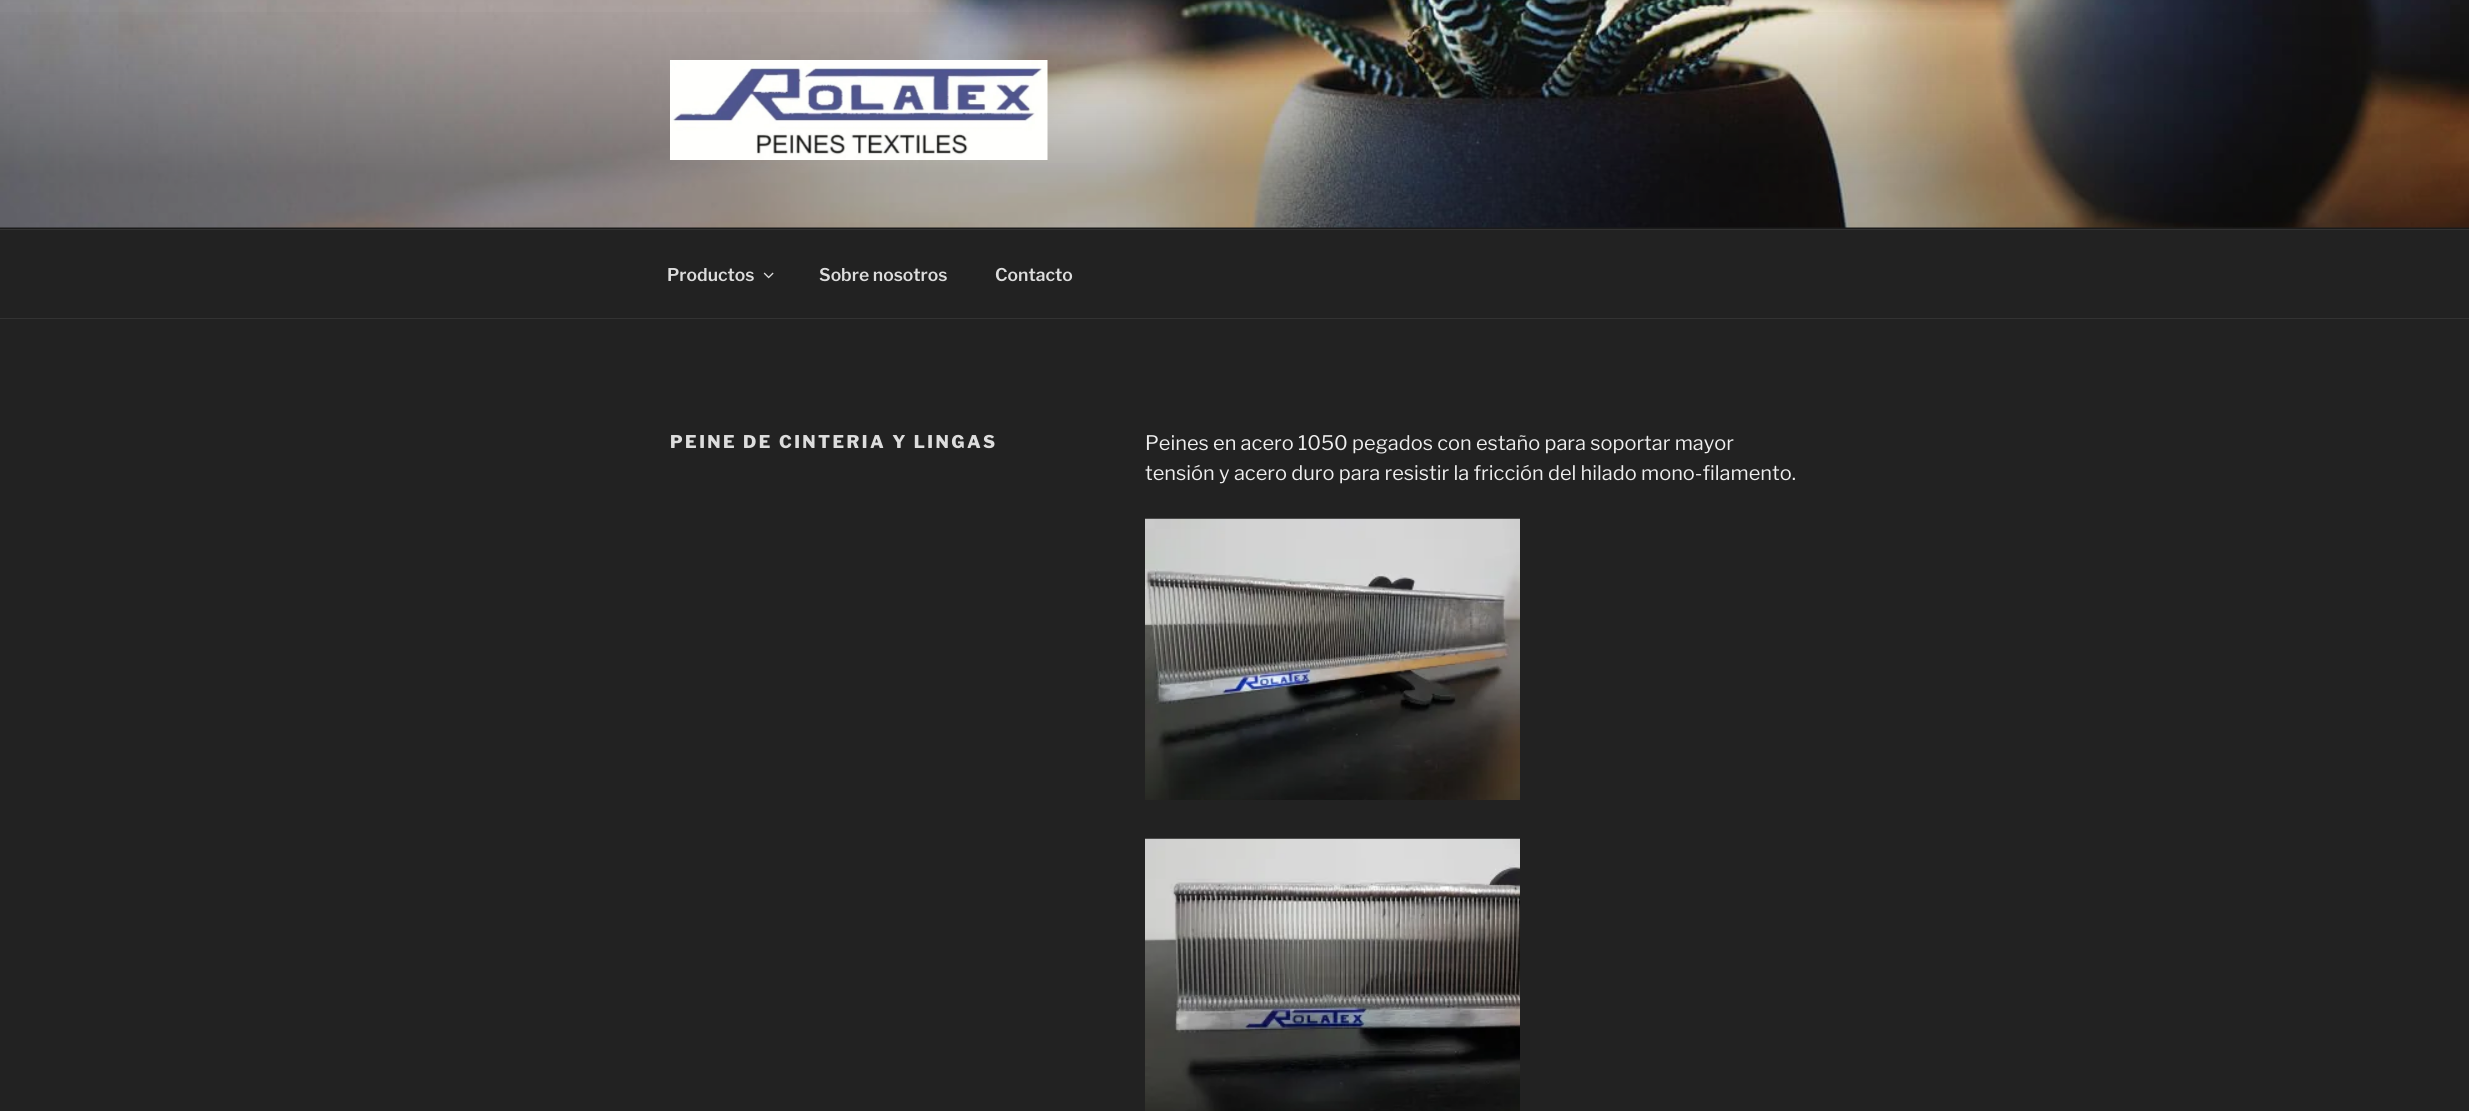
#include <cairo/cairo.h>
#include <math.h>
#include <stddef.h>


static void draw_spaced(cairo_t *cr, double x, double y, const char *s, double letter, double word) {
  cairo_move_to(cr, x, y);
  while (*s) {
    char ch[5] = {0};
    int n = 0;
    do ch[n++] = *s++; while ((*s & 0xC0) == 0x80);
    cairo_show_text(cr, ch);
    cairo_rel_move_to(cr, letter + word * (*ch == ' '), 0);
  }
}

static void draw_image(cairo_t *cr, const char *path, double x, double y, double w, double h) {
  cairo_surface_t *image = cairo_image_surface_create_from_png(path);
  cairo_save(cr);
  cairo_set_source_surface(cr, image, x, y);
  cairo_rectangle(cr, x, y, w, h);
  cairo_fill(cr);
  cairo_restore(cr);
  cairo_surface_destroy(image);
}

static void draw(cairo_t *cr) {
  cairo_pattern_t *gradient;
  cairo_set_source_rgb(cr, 34 / 255.0, 34 / 255.0, 34 / 255.0);
  cairo_paint(cr);
  cairo_set_source_rgb(cr, 38 / 255.0, 38 / 255.0, 38 / 255.0);
  cairo_rectangle(cr, 0, 227, 2469, 2);
  cairo_fill(cr);
  draw_image(cr, "images/1.png", 0, 0, 2469, 228);
  gradient = cairo_pattern_create_linear(1235, 0, 1235, 229);
  cairo_pattern_add_color_stop_rgba(gradient, 0, 0, 0, 0, 0);
  cairo_pattern_add_color_stop_rgba(gradient, 0.75, 0, 0, 0, 0.3);
  cairo_pattern_add_color_stop_rgba(gradient, 1, 0, 0, 0, 0.3);
  cairo_set_source(cr, gradient);
  cairo_pattern_destroy(gradient);
  cairo_rectangle(cr, 0, 12, 2469, 217);
  cairo_fill(cr);
  draw_image(cr, "images/2.png", 670, 60, 378, 100);
  cairo_set_source_rgb(cr, 51 / 255.0, 51 / 255.0, 51 / 255.0);
  cairo_rectangle(cr, 0, 229, 2469, 1);
  cairo_fill(cr);
  cairo_rectangle(cr, 0, 318, 2469, 1);
  cairo_fill(cr);
  draw_image(cr, "images/3.png", 763, 272, 11, 7);
  draw_image(cr, "images/4.png", 1145, 518, 375, 282);
  draw_image(cr, "images/5.png", 1145, 838, 375, 273);
  cairo_select_font_face(cr, "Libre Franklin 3 Thin", CAIRO_FONT_SLANT_NORMAL, CAIRO_FONT_WEIGHT_NORMAL);
  cairo_set_font_size(cr, 17.5);
  cairo_set_source_rgb(cr, 221 / 255.0, 221 / 255.0, 221 / 255.0);
  cairo_move_to(cr, 667, 281);
  cairo_show_text(cr, "Productos");
  cairo_move_to(cr, 819, 281);
  cairo_show_text(cr, "Sobre nosotros");
  cairo_move_to(cr, 995, 281);
  cairo_show_text(cr, "Contacto");
  cairo_select_font_face(cr, "Libre Franklin Thin", CAIRO_FONT_SLANT_NORMAL, CAIRO_FONT_WEIGHT_NORMAL);
  draw_spaced(cr, 670, 448, "PEINE DE CINTERIA Y LINGAS", 2.45, 0);
  cairo_select_font_face(cr, "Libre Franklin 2 Thin", CAIRO_FONT_SLANT_NORMAL, CAIRO_FONT_WEIGHT_NORMAL);
  cairo_set_font_size(cr, 20);
  cairo_set_source_rgb(cr, 238 / 255.0, 238 / 255.0, 238 / 255.0);
  cairo_move_to(cr, 1145, 450);
  cairo_show_text(cr, "Peines en acero 1050 pegados con estaño para soportar mayor");
  cairo_move_to(cr, 1145, 480);
  cairo_show_text(cr, "tensión y acero duro para resistir la fricción del hilado mono-filamento.");
}

int main(void) {
  cairo_surface_t *surface = cairo_image_surface_create(CAIRO_FORMAT_RGB24, 2469, 1111);
  cairo_t *cr = cairo_create(surface);
  cairo_font_options_t *options = cairo_font_options_create();
  cairo_font_options_set_hint_metrics(options, CAIRO_HINT_METRICS_OFF);
  cairo_font_options_set_hint_style(options, CAIRO_HINT_STYLE_NONE);
  cairo_set_font_options(cr, options);
  cairo_set_miter_limit(cr, 4);
  draw(cr);
  cairo_surface_write_to_png(surface, "out.png");
  cairo_font_options_destroy(options);
  cairo_destroy(cr);
  cairo_surface_destroy(surface);
  return 0;
}
